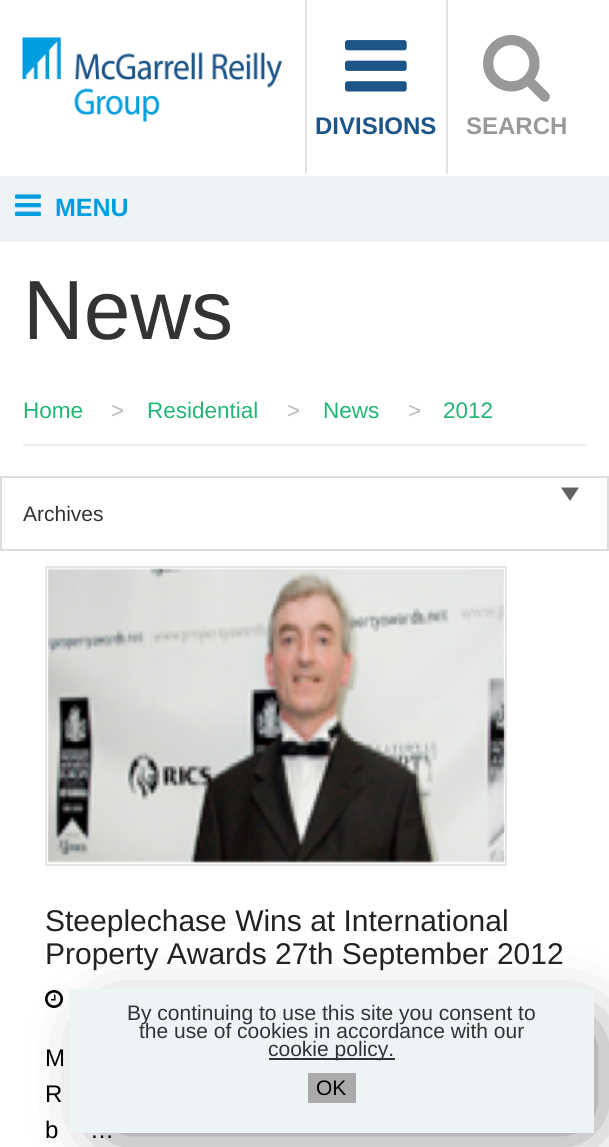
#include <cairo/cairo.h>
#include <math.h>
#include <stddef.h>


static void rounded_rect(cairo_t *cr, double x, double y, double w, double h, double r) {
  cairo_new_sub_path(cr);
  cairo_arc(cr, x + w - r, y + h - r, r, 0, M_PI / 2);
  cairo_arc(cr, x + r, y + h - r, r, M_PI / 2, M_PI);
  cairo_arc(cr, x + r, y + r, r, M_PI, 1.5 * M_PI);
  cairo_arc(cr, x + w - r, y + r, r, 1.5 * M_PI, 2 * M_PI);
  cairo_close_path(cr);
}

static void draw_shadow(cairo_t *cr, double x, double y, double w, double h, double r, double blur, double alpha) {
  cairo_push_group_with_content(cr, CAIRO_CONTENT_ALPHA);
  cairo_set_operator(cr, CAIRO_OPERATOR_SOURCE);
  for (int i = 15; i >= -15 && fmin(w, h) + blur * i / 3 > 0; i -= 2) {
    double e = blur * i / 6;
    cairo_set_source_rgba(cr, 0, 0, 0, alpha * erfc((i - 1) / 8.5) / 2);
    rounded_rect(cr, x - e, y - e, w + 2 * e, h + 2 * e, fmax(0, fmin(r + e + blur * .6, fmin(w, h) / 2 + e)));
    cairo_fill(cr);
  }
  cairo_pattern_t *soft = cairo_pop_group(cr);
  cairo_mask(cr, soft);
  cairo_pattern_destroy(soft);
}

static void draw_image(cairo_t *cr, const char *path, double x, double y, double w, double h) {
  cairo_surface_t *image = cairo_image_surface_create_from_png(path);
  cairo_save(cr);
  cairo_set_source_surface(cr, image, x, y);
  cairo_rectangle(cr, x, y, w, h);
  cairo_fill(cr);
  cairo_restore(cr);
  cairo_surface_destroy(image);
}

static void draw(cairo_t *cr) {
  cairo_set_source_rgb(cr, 1, 1, 1);
  cairo_paint(cr);
  draw_image(cr, "images/1.png", 22, 37, 260, 85);
  cairo_set_source_rgb(cr, 226 / 255.0, 226 / 255.0, 226 / 255.0);
  cairo_rectangle(cr, 305, 0, 2, 174);
  cairo_fill(cr);
  draw_image(cr, "images/2.png", 345, 40, 62, 52);
  cairo_rectangle(cr, 446, 0, 2, 174);
  cairo_fill(cr);
  draw_image(cr, "images/3.png", 483, 34, 67, 68);
  cairo_set_source_rgb(cr, 238 / 255.0, 243 / 255.0, 245 / 255.0);
  cairo_rectangle(cr, 0, 176, 609, 66);
  cairo_fill(cr);
  draw_image(cr, "images/4.png", 15, 194, 26, 22);
  cairo_set_source_rgb(cr, 238 / 255.0, 238 / 255.0, 238 / 255.0);
  cairo_rectangle(cr, 23, 444, 564, 2);
  cairo_fill(cr);
  cairo_rectangle(cr, 1, 477, 607, 73);
  cairo_set_source_rgb(cr, 221 / 255.0, 221 / 255.0, 221 / 255.0);
  cairo_stroke(cr);
  cairo_set_source_rgb(cr, 97 / 255.0, 97 / 255.0, 97 / 255.0);
  cairo_new_path(cr);
  cairo_move_to(cr, 561, 487.5);
  cairo_line_to(cr, 579, 487.5);
  cairo_line_to(cr, 570, 501);
  cairo_close_path(cr);
  cairo_fill(cr);
  cairo_rectangle(cr, 46, 567, 460, 298);
  cairo_set_source_rgb(cr, 230 / 255.0, 230 / 255.0, 230 / 255.0);
  cairo_stroke(cr);
  draw_image(cr, "images/5.png", 47, 568, 459, 295);
  draw_image(cr, "images/6.png", 45, 990, 18, 18);
  cairo_set_source_rgb(cr, 0, 0, 0);
  draw_shadow(cr, 113, 1032, 468, 87, 0, 35, 0.75);
  cairo_set_source_rgb(cr, 238 / 255.0, 243 / 255.0, 245 / 255.0);
  cairo_rectangle(cr, 69, 989, 525, 144);
  cairo_fill(cr);
  cairo_set_source_rgb(cr, 51 / 255.0, 51 / 255.0, 51 / 255.0);
  cairo_rectangle(cr, 269, 1058, 126, 2);
  cairo_fill(cr);
  cairo_set_source_rgb(cr, 170 / 255.0, 170 / 255.0, 170 / 255.0);
  cairo_rectangle(cr, 308, 1073, 48, 30);
  cairo_fill(cr);
  cairo_select_font_face(cr, "Liberation Sans", CAIRO_FONT_SLANT_NORMAL, CAIRO_FONT_WEIGHT_BOLD);
  cairo_set_font_size(cr, 24);
  cairo_set_source_rgb(cr, 29 / 255.0, 85 / 255.0, 136 / 255.0);
  cairo_move_to(cr, 315, 134);
  cairo_show_text(cr, "DIVISIONS");
  cairo_set_source_rgb(cr, 153 / 255.0, 153 / 255.0, 153 / 255.0);
  cairo_move_to(cr, 466, 134);
  cairo_show_text(cr, "SEARCH");
  cairo_set_font_size(cr, 25);
  cairo_set_source_rgb(cr, 0, 158 / 255.0, 224 / 255.0);
  cairo_move_to(cr, 55, 216);
  cairo_show_text(cr, "MENU");
  cairo_select_font_face(cr, "Liberation Sans", CAIRO_FONT_SLANT_NORMAL, CAIRO_FONT_WEIGHT_NORMAL);
  cairo_set_font_size(cr, 84);
  cairo_set_source_rgb(cr, 51 / 255.0, 51 / 255.0, 51 / 255.0);
  cairo_move_to(cr, 23, 339);
  cairo_show_text(cr, "News");
  cairo_set_font_size(cr, 22.5);
  cairo_set_source_rgb(cr, 34 / 255.0, 181 / 255.0, 115 / 255.0);
  cairo_move_to(cr, 23, 418);
  cairo_show_text(cr, "Home");
  cairo_set_source_rgb(cr, 187 / 255.0, 187 / 255.0, 187 / 255.0);
  cairo_move_to(cr, 111, 418);
  cairo_show_text(cr, ">");
  cairo_set_source_rgb(cr, 34 / 255.0, 181 / 255.0, 115 / 255.0);
  cairo_move_to(cr, 147, 418);
  cairo_show_text(cr, "Residential");
  cairo_set_source_rgb(cr, 187 / 255.0, 187 / 255.0, 187 / 255.0);
  cairo_move_to(cr, 287, 418);
  cairo_show_text(cr, ">");
  cairo_set_source_rgb(cr, 34 / 255.0, 181 / 255.0, 115 / 255.0);
  cairo_move_to(cr, 323, 418);
  cairo_show_text(cr, "News");
  cairo_set_source_rgb(cr, 187 / 255.0, 187 / 255.0, 187 / 255.0);
  cairo_move_to(cr, 408, 418);
  cairo_show_text(cr, ">");
  cairo_set_source_rgb(cr, 34 / 255.0, 181 / 255.0, 115 / 255.0);
  cairo_move_to(cr, 443, 418);
  cairo_show_text(cr, "2012");
  cairo_set_font_size(cr, 21);
  cairo_set_source_rgb(cr, 51 / 255.0, 51 / 255.0, 51 / 255.0);
  cairo_move_to(cr, 23, 521);
  cairo_show_text(cr, "Archives");
  cairo_set_font_size(cr, 30);
  cairo_set_source_rgb(cr, 34 / 255.0, 34 / 255.0, 34 / 255.0);
  cairo_move_to(cr, 45, 931);
  cairo_show_text(cr, "Steeplechase Wins at International");
  cairo_move_to(cr, 45, 964);
  cairo_show_text(cr, "Property Awards 27th September 2012");
  cairo_set_font_size(cr, 24);
  cairo_set_source_rgb(cr, 0, 0, 0);
  cairo_move_to(cr, 45, 1066);
  cairo_show_text(cr, "M");
  cairo_move_to(cr, 45, 1102);
  cairo_show_text(cr, "R");
  cairo_move_to(cr, 45, 1138);
  cairo_show_text(cr, "b");
  cairo_move_to(cr, 90, 1138);
  cairo_show_text(cr, "…");
  cairo_set_font_size(cr, 21);
  cairo_set_source_rgb(cr, 51 / 255.0, 51 / 255.0, 51 / 255.0);
  cairo_move_to(cr, 127, 1020);
  cairo_show_text(cr, "By continuing to use this site you consent to");
  cairo_move_to(cr, 139, 1038);
  cairo_show_text(cr, "the use of cookies in accordance with our");
  cairo_move_to(cr, 268, 1056);
  cairo_show_text(cr, "cookie policy.");
  cairo_set_source_rgb(cr, 0, 0, 0);
  cairo_move_to(cr, 316, 1095);
  cairo_show_text(cr, "OK");
}

int main(void) {
  cairo_surface_t *surface = cairo_image_surface_create(CAIRO_FORMAT_RGB24, 609, 1147);
  cairo_t *cr = cairo_create(surface);
  cairo_font_options_t *options = cairo_font_options_create();
  cairo_font_options_set_hint_metrics(options, CAIRO_HINT_METRICS_OFF);
  cairo_font_options_set_hint_style(options, CAIRO_HINT_STYLE_NONE);
  cairo_set_font_options(cr, options);
  cairo_set_miter_limit(cr, 4);
  draw(cr);
  cairo_surface_write_to_png(surface, "out.png");
  cairo_font_options_destroy(options);
  cairo_destroy(cr);
  cairo_surface_destroy(surface);
  return 0;
}
